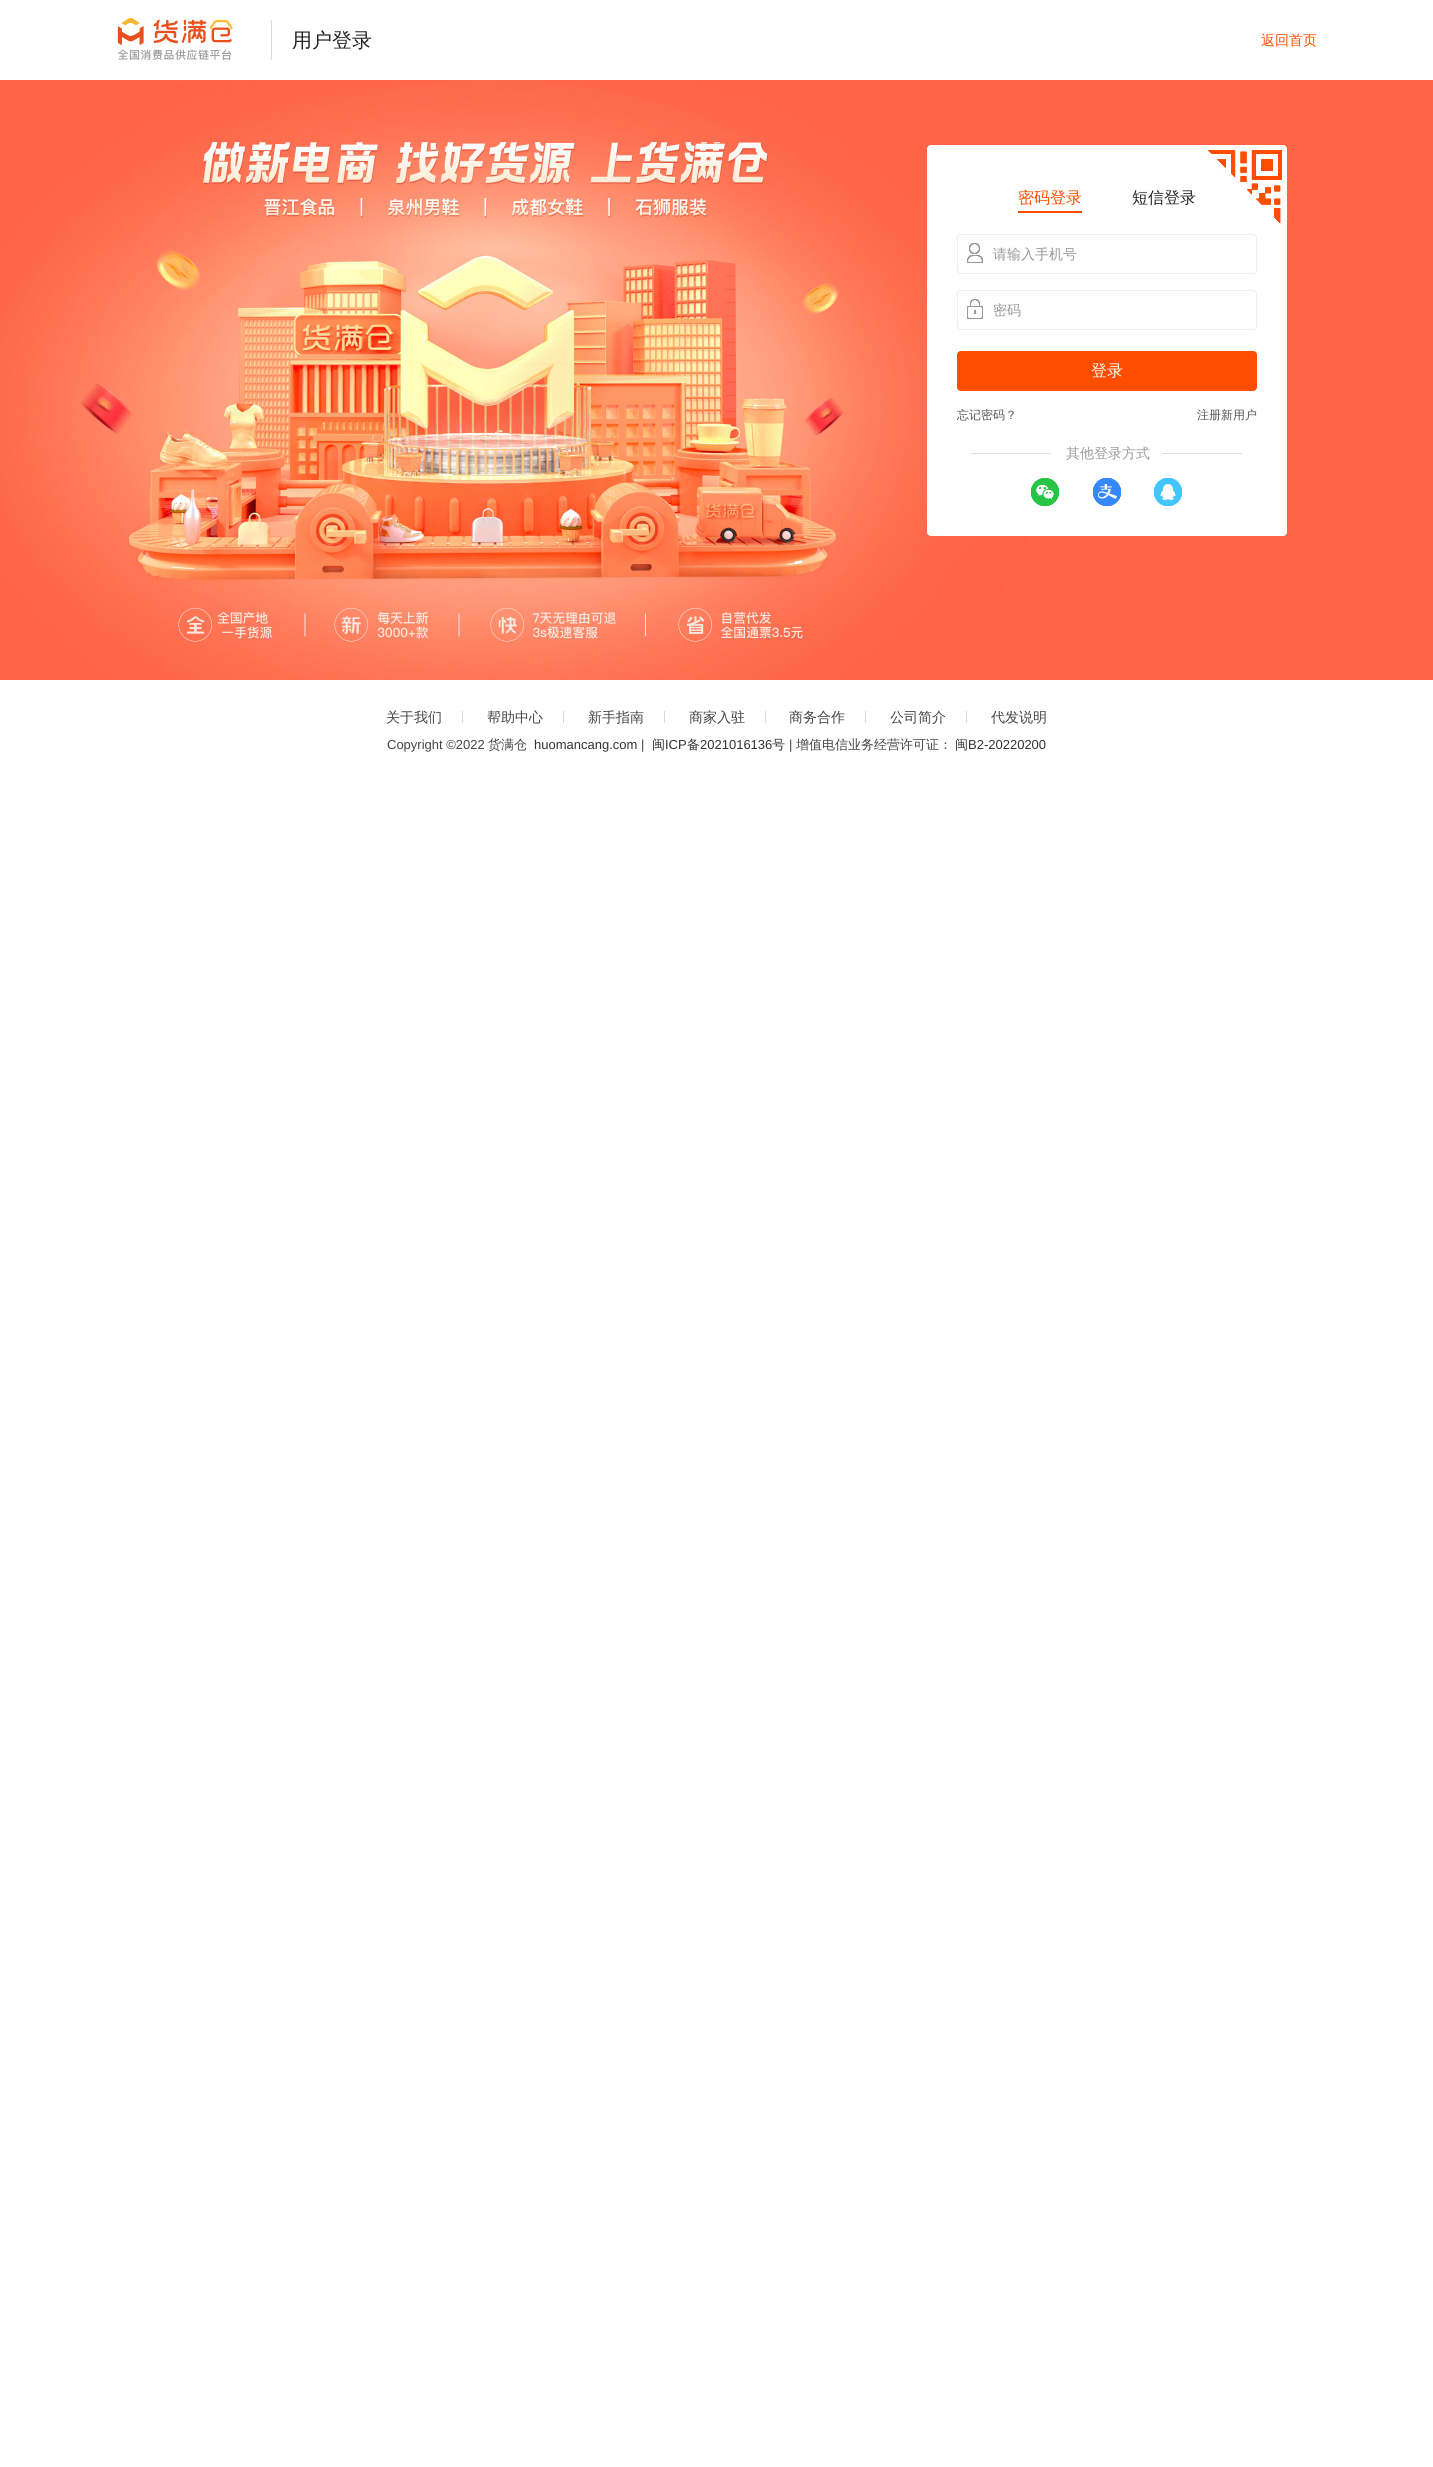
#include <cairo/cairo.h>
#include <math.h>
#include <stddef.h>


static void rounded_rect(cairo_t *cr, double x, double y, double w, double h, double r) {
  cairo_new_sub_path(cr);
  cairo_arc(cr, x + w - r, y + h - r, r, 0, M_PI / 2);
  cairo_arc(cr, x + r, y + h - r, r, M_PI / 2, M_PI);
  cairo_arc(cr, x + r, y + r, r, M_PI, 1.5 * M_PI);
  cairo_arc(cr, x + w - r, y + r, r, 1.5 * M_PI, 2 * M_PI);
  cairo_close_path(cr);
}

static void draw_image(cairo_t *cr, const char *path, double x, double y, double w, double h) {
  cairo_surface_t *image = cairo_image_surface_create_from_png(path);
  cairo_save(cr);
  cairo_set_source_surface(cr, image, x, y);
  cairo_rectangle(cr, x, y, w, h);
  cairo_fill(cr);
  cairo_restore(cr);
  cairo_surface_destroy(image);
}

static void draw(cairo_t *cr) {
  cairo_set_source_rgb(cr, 1, 1, 1);
  cairo_paint(cr);
  draw_image(cr, "images/1.png", 117, 18, 116, 42);
  cairo_set_source_rgb(cr, 219 / 255.0, 219 / 255.0, 219 / 255.0);
  cairo_rectangle(cr, 271, 20, 1, 40);
  cairo_fill(cr);
  draw_image(cr, "images/2.png", 0, 80, 1433, 600);
  cairo_set_source_rgb(cr, 1, 1, 1);
  rounded_rect(cr, 927, 145, 360, 391, 4);
  cairo_fill(cr);
  draw_image(cr, "images/3.png", 1208, 150, 74, 74);
  cairo_set_source_rgb(cr, 1, 77 / 255.0, 0);
  cairo_rectangle(cr, 1018, 211, 64, 2);
  cairo_fill(cr);
  rounded_rect(cr, 957.5, 234.5, 299, 39, 3.5);
  cairo_set_source_rgb(cr, 238 / 255.0, 238 / 255.0, 238 / 255.0);
  cairo_set_line_width(cr, 1);
  cairo_stroke(cr);
  draw_image(cr, "images/4.png", 967, 243, 16, 20);
  rounded_rect(cr, 957.5, 290.5, 299, 39, 3.5);
  cairo_stroke(cr);
  draw_image(cr, "images/5.png", 967, 299, 16, 20);
  cairo_set_source_rgb(cr, 1, 77 / 255.0, 0);
  rounded_rect(cr, 957, 351, 300, 40, 4);
  cairo_fill(cr);
  cairo_set_source_rgb(cr, 221 / 255.0, 221 / 255.0, 221 / 255.0);
  cairo_rectangle(cr, 971, 453, 80, 1);
  cairo_fill(cr);
  cairo_rectangle(cr, 1162, 453, 80, 1);
  cairo_fill(cr);
  draw_image(cr, "images/6.png", 1031, 478, 28, 28);
  draw_image(cr, "images/7.png", 1093, 478, 28, 28);
  draw_image(cr, "images/8.png", 1154, 478, 28, 28);
  cairo_set_source_rgb(cr, 218 / 255.0, 218 / 255.0, 218 / 255.0);
  cairo_rectangle(cr, 462, 711, 1, 12);
  cairo_fill(cr);
  cairo_rectangle(cr, 563, 711, 1, 12);
  cairo_fill(cr);
  cairo_rectangle(cr, 664, 711, 1, 12);
  cairo_fill(cr);
  cairo_rectangle(cr, 765, 711, 1, 12);
  cairo_fill(cr);
  cairo_rectangle(cr, 865, 711, 1, 12);
  cairo_fill(cr);
  cairo_rectangle(cr, 966, 711, 1, 12);
  cairo_fill(cr);
  cairo_select_font_face(cr, "WenQuanYi Zen Hei Medium", CAIRO_FONT_SLANT_NORMAL, CAIRO_FONT_WEIGHT_NORMAL);
  cairo_set_font_size(cr, 20);
  cairo_set_source_rgb(cr, 34 / 255.0, 34 / 255.0, 34 / 255.0);
  cairo_move_to(cr, 292, 47);
  cairo_show_text(cr, "用户登录");
  cairo_set_font_size(cr, 14);
  cairo_set_source_rgb(cr, 1, 77 / 255.0, 0);
  cairo_move_to(cr, 1261, 45);
  cairo_show_text(cr, "返回首页");
  cairo_set_font_size(cr, 16);
  cairo_move_to(cr, 1018, 203);
  cairo_show_text(cr, "密码登录");
  cairo_set_source_rgb(cr, 34 / 255.0, 34 / 255.0, 34 / 255.0);
  cairo_move_to(cr, 1132, 203);
  cairo_show_text(cr, "短信登录");
  cairo_set_font_size(cr, 14);
  cairo_set_source_rgb(cr, 153 / 255.0, 153 / 255.0, 153 / 255.0);
  cairo_move_to(cr, 993, 259);
  cairo_show_text(cr, "请输入手机号");
  cairo_move_to(cr, 993, 315);
  cairo_show_text(cr, "密码");
  cairo_set_font_size(cr, 16);
  cairo_set_source_rgb(cr, 1, 1, 1);
  cairo_move_to(cr, 1091, 376);
  cairo_show_text(cr, "登录");
  cairo_set_font_size(cr, 12);
  cairo_set_source_rgb(cr, 85 / 255.0, 85 / 255.0, 85 / 255.0);
  cairo_move_to(cr, 957, 419);
  cairo_show_text(cr, "忘记密码？");
  cairo_move_to(cr, 1197, 419);
  cairo_show_text(cr, "注册新用户");
  cairo_set_font_size(cr, 14);
  cairo_set_source_rgb(cr, 153 / 255.0, 153 / 255.0, 153 / 255.0);
  cairo_move_to(cr, 1066, 458);
  cairo_show_text(cr, "其他登录方式");
  cairo_set_source_rgb(cr, 68 / 255.0, 68 / 255.0, 68 / 255.0);
  cairo_move_to(cr, 386, 722);
  cairo_show_text(cr, "关于我们");
  cairo_move_to(cr, 487, 722);
  cairo_show_text(cr, "帮助中心");
  cairo_move_to(cr, 588, 722);
  cairo_show_text(cr, "新手指南");
  cairo_move_to(cr, 689, 722);
  cairo_show_text(cr, "商家入驻");
  cairo_move_to(cr, 789, 722);
  cairo_show_text(cr, "商务合作");
  cairo_move_to(cr, 890, 722);
  cairo_show_text(cr, "公司简介");
  cairo_move_to(cr, 991, 722);
  cairo_show_text(cr, "代发说明");
  cairo_select_font_face(cr, "Liberation Sans", CAIRO_FONT_SLANT_NORMAL, CAIRO_FONT_WEIGHT_NORMAL);
  cairo_set_font_size(cr, 13);
  cairo_move_to(cr, 387, 749);
  cairo_show_text(cr, "Copyright ©2022");
  cairo_select_font_face(cr, "WenQuanYi Zen Hei Medium", CAIRO_FONT_SLANT_NORMAL, CAIRO_FONT_WEIGHT_NORMAL);
  cairo_move_to(cr, 488, 749);
  cairo_show_text(cr, "货满仓");
  cairo_select_font_face(cr, "Liberation Sans", CAIRO_FONT_SLANT_NORMAL, CAIRO_FONT_WEIGHT_NORMAL);
  cairo_set_source_rgb(cr, 51 / 255.0, 51 / 255.0, 51 / 255.0);
  cairo_move_to(cr, 534, 749);
  cairo_show_text(cr, "huomancang.com");
  cairo_set_source_rgb(cr, 68 / 255.0, 68 / 255.0, 68 / 255.0);
  cairo_move_to(cr, 641, 749);
  cairo_show_text(cr, "|");
  cairo_select_font_face(cr, "WenQuanYi Zen Hei Medium", CAIRO_FONT_SLANT_NORMAL, CAIRO_FONT_WEIGHT_NORMAL);
  cairo_set_source_rgb(cr, 51 / 255.0, 51 / 255.0, 51 / 255.0);
  cairo_move_to(cr, 652, 749);
  cairo_show_text(cr, "闽");
  cairo_select_font_face(cr, "Liberation Sans", CAIRO_FONT_SLANT_NORMAL, CAIRO_FONT_WEIGHT_NORMAL);
  cairo_move_to(cr, 665, 749);
  cairo_show_text(cr, "ICP");
  cairo_select_font_face(cr, "WenQuanYi Zen Hei Medium", CAIRO_FONT_SLANT_NORMAL, CAIRO_FONT_WEIGHT_NORMAL);
  cairo_move_to(cr, 687, 749);
  cairo_show_text(cr, "备");
  cairo_select_font_face(cr, "Liberation Sans", CAIRO_FONT_SLANT_NORMAL, CAIRO_FONT_WEIGHT_NORMAL);
  cairo_move_to(cr, 700, 749);
  cairo_show_text(cr, "2021016136");
  cairo_select_font_face(cr, "WenQuanYi Zen Hei Medium", CAIRO_FONT_SLANT_NORMAL, CAIRO_FONT_WEIGHT_NORMAL);
  cairo_move_to(cr, 772, 749);
  cairo_show_text(cr, "号");
  cairo_select_font_face(cr, "Liberation Sans", CAIRO_FONT_SLANT_NORMAL, CAIRO_FONT_WEIGHT_NORMAL);
  cairo_set_source_rgb(cr, 68 / 255.0, 68 / 255.0, 68 / 255.0);
  cairo_move_to(cr, 789, 749);
  cairo_show_text(cr, "|");
  cairo_select_font_face(cr, "WenQuanYi Zen Hei Medium", CAIRO_FONT_SLANT_NORMAL, CAIRO_FONT_WEIGHT_NORMAL);
  cairo_move_to(cr, 796, 749);
  cairo_show_text(cr, "增值电信业务经营许可证：");
  cairo_set_source_rgb(cr, 51 / 255.0, 51 / 255.0, 51 / 255.0);
  cairo_move_to(cr, 955, 749);
  cairo_show_text(cr, "闽");
  cairo_select_font_face(cr, "Liberation Sans", CAIRO_FONT_SLANT_NORMAL, CAIRO_FONT_WEIGHT_NORMAL);
  cairo_move_to(cr, 968, 749);
  cairo_show_text(cr, "B2-20220200");
}

int main(void) {
  cairo_surface_t *surface = cairo_image_surface_create(CAIRO_FORMAT_RGB24, 1433, 2467);
  cairo_t *cr = cairo_create(surface);
  cairo_font_options_t *options = cairo_font_options_create();
  cairo_font_options_set_hint_metrics(options, CAIRO_HINT_METRICS_OFF);
  cairo_font_options_set_hint_style(options, CAIRO_HINT_STYLE_NONE);
  cairo_set_font_options(cr, options);
  cairo_set_miter_limit(cr, 4);
  draw(cr);
  cairo_surface_write_to_png(surface, "out.png");
  cairo_font_options_destroy(options);
  cairo_destroy(cr);
  cairo_surface_destroy(surface);
  return 0;
}
